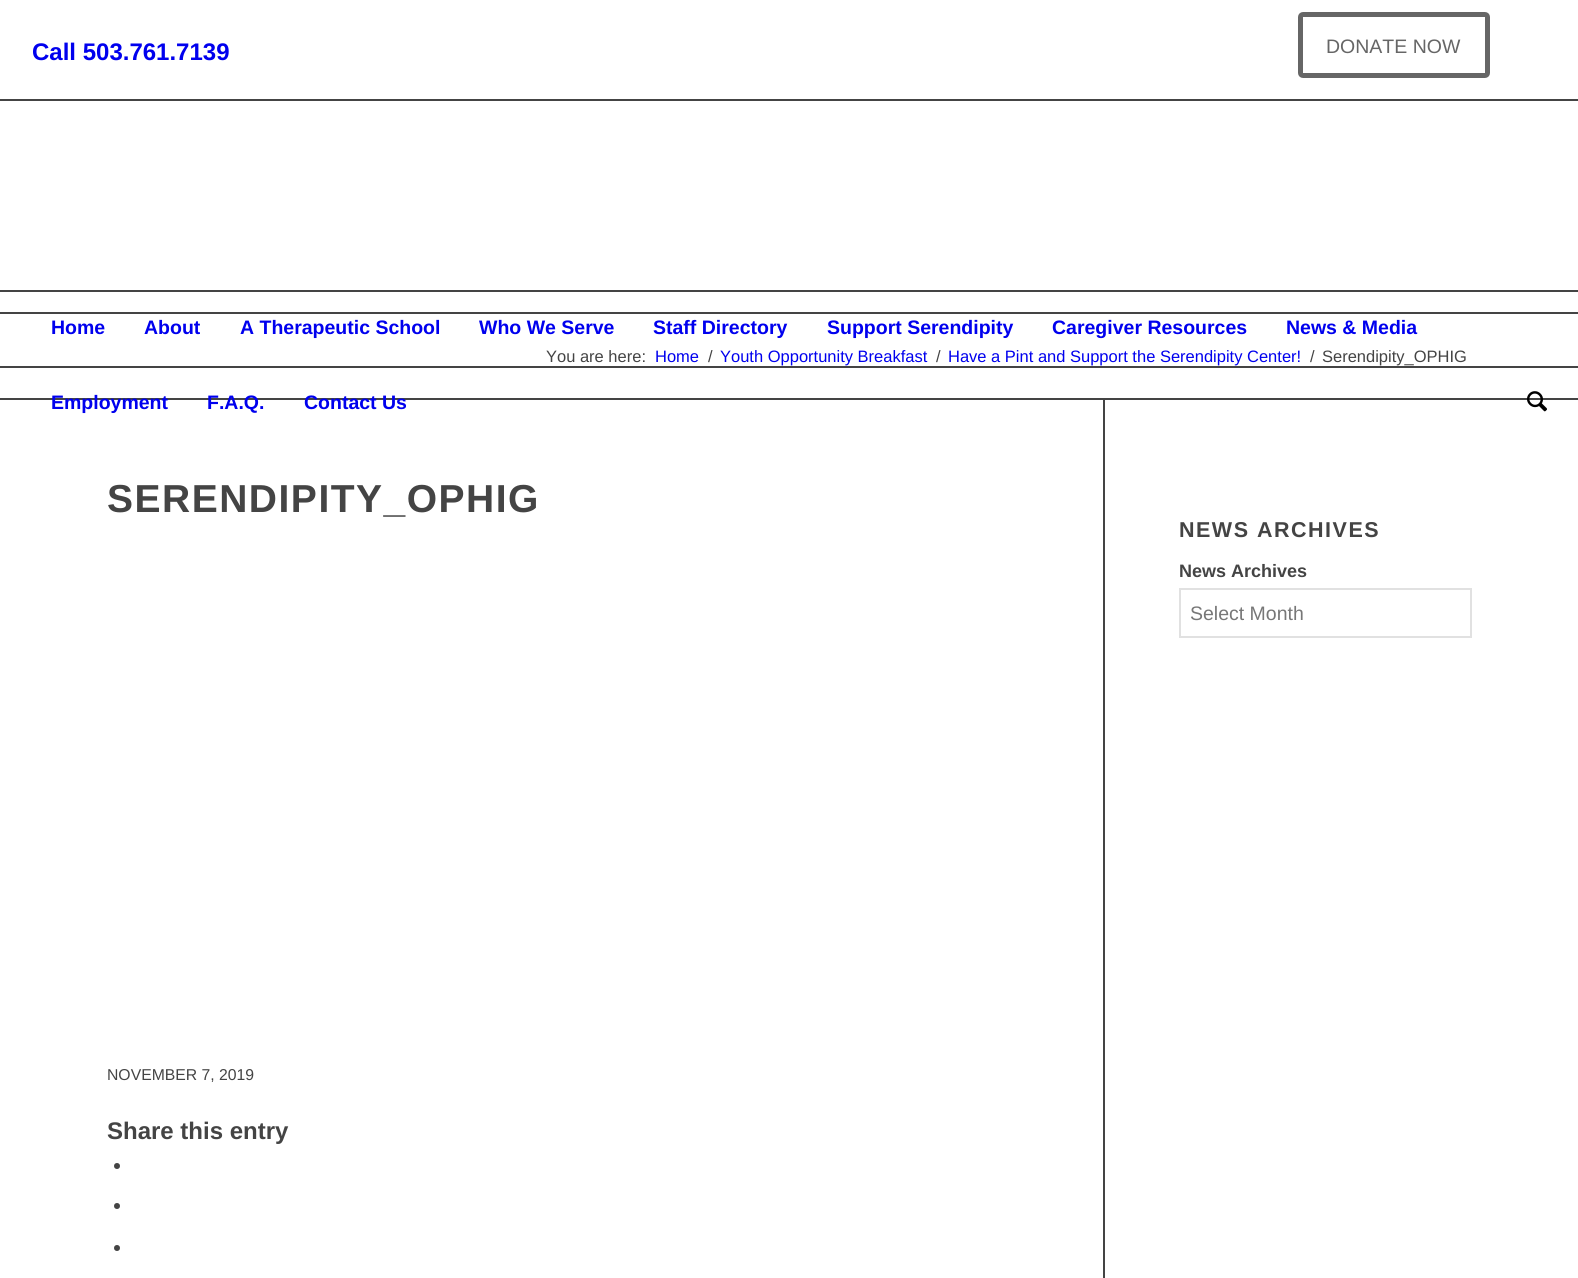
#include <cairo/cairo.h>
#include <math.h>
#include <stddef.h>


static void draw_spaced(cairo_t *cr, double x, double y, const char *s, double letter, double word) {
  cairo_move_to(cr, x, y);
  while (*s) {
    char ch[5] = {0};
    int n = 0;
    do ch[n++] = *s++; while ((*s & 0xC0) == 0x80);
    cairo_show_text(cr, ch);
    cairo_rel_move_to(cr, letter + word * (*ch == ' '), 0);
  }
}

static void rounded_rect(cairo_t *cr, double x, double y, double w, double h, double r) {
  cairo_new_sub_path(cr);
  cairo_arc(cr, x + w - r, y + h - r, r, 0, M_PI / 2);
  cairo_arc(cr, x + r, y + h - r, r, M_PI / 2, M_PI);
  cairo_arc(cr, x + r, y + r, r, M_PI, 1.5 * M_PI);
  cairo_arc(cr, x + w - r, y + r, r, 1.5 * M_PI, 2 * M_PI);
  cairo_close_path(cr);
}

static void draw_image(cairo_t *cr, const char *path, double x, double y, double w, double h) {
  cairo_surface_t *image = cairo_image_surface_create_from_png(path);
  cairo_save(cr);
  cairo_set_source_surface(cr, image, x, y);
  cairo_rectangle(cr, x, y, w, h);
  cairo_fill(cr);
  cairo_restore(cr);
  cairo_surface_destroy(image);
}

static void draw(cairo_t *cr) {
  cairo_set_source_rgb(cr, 1, 1, 1);
  cairo_paint(cr);
  rounded_rect(cr, 1300.5, 14.5, 187, 61, 2.5);
  cairo_set_source_rgb(cr, 102 / 255.0, 102 / 255.0, 102 / 255.0);
  cairo_set_line_width(cr, 5);
  cairo_stroke(cr);
  cairo_set_source_rgb(cr, 68 / 255.0, 68 / 255.0, 68 / 255.0);
  cairo_rectangle(cr, 0, 99, 1578, 2);
  cairo_fill(cr);
  cairo_rectangle(cr, 0, 366, 1578, 2);
  cairo_fill(cr);
  cairo_rectangle(cr, 0, 290, 1578, 2);
  cairo_fill(cr);
  cairo_rectangle(cr, 0, 398, 1578, 2);
  cairo_fill(cr);
  draw_image(cr, "images/1.png", 1527, 391, 20, 21);
  cairo_rectangle(cr, 0, 312, 1578, 2);
  cairo_fill(cr);
  cairo_rectangle(cr, 1103, 399, 2, 879);
  cairo_fill(cr);
  cairo_arc(cr, 117, 1166, 3, 0, 2 * M_PI);
  cairo_fill(cr);
  cairo_arc(cr, 117, 1206, 3, 0, 2 * M_PI);
  cairo_fill(cr);
  cairo_arc(cr, 117, 1248, 3, 0, 2 * M_PI);
  cairo_fill(cr);
  cairo_rectangle(cr, 1180, 589, 291, 48);
  cairo_set_source_rgb(cr, 225 / 255.0, 225 / 255.0, 225 / 255.0);
  cairo_set_line_width(cr, 2);
  cairo_stroke(cr);
  cairo_select_font_face(cr, "Liberation Sans", CAIRO_FONT_SLANT_NORMAL, CAIRO_FONT_WEIGHT_BOLD);
  cairo_set_font_size(cr, 24);
  cairo_set_source_rgb(cr, 0, 0, 238 / 255.0);
  cairo_move_to(cr, 32, 60);
  cairo_show_text(cr, "Call 503.761.7139");
  cairo_select_font_face(cr, "Liberation Sans", CAIRO_FONT_SLANT_NORMAL, CAIRO_FONT_WEIGHT_NORMAL);
  cairo_set_font_size(cr, 19.5);
  cairo_set_source_rgb(cr, 102 / 255.0, 102 / 255.0, 102 / 255.0);
  cairo_move_to(cr, 1326, 53);
  cairo_show_text(cr, "DONATE NOW");
  cairo_select_font_face(cr, "Liberation Sans", CAIRO_FONT_SLANT_NORMAL, CAIRO_FONT_WEIGHT_BOLD);
  cairo_set_source_rgb(cr, 0, 0, 238 / 255.0);
  cairo_move_to(cr, 51, 334);
  cairo_show_text(cr, "Home");
  cairo_move_to(cr, 144, 334);
  cairo_show_text(cr, "About");
  cairo_move_to(cr, 240, 334);
  cairo_show_text(cr, "A Therapeutic School");
  cairo_move_to(cr, 479, 334);
  cairo_show_text(cr, "Who We Serve");
  cairo_move_to(cr, 653, 334);
  cairo_show_text(cr, "Staff Directory");
  cairo_move_to(cr, 827, 334);
  cairo_show_text(cr, "Support Serendipity");
  cairo_move_to(cr, 1052, 334);
  cairo_show_text(cr, "Caregiver Resources");
  cairo_move_to(cr, 1286, 334);
  cairo_show_text(cr, "News & Media");
  cairo_move_to(cr, 51, 409);
  cairo_show_text(cr, "Employment");
  cairo_move_to(cr, 207, 409);
  cairo_show_text(cr, "F.A.Q.");
  cairo_move_to(cr, 304, 409);
  cairo_show_text(cr, "Contact Us");
  cairo_select_font_face(cr, "Liberation Sans", CAIRO_FONT_SLANT_NORMAL, CAIRO_FONT_WEIGHT_NORMAL);
  cairo_set_font_size(cr, 16.5);
  cairo_set_source_rgb(cr, 68 / 255.0, 68 / 255.0, 68 / 255.0);
  cairo_move_to(cr, 546, 362);
  cairo_show_text(cr, "You are here:");
  cairo_set_source_rgb(cr, 0, 0, 238 / 255.0);
  cairo_move_to(cr, 655, 362);
  cairo_show_text(cr, "Home");
  cairo_set_source_rgb(cr, 68 / 255.0, 68 / 255.0, 68 / 255.0);
  cairo_move_to(cr, 708, 362);
  cairo_show_text(cr, "/");
  cairo_set_source_rgb(cr, 0, 0, 238 / 255.0);
  cairo_move_to(cr, 720, 362);
  cairo_show_text(cr, "Youth Opportunity Breakfast");
  cairo_set_source_rgb(cr, 68 / 255.0, 68 / 255.0, 68 / 255.0);
  cairo_move_to(cr, 936, 362);
  cairo_show_text(cr, "/");
  cairo_set_source_rgb(cr, 0, 0, 238 / 255.0);
  cairo_move_to(cr, 948, 362);
  cairo_show_text(cr, "Have a Pint and Support the Serendipity Center!");
  cairo_set_source_rgb(cr, 68 / 255.0, 68 / 255.0, 68 / 255.0);
  cairo_move_to(cr, 1310, 362);
  cairo_show_text(cr, "/");
  cairo_move_to(cr, 1322, 362);
  cairo_show_text(cr, "Serendipity_OPHIG");
  cairo_select_font_face(cr, "Liberation Sans", CAIRO_FONT_SLANT_NORMAL, CAIRO_FONT_WEIGHT_BOLD);
  cairo_set_font_size(cr, 39);
  draw_spaced(cr, 107, 512, "SERENDIPITY_OPHIG", 1.5, 0);
  cairo_select_font_face(cr, "Liberation Sans", CAIRO_FONT_SLANT_NORMAL, CAIRO_FONT_WEIGHT_NORMAL);
  cairo_set_font_size(cr, 15.75);
  cairo_move_to(cr, 107, 1080);
  cairo_show_text(cr, "NOVEMBER 7, 2019");
  cairo_select_font_face(cr, "Liberation Sans", CAIRO_FONT_SLANT_NORMAL, CAIRO_FONT_WEIGHT_BOLD);
  cairo_set_font_size(cr, 24);
  cairo_move_to(cr, 107, 1139);
  cairo_show_text(cr, "Share this entry");
  cairo_set_font_size(cr, 21.5);
  draw_spaced(cr, 1179, 537, "NEWS ARCHIVES", 1.5, 0);
  cairo_set_font_size(cr, 18);
  cairo_move_to(cr, 1179, 577);
  cairo_show_text(cr, "News Archives");
  cairo_select_font_face(cr, "Liberation Sans", CAIRO_FONT_SLANT_NORMAL, CAIRO_FONT_WEIGHT_NORMAL);
  cairo_set_font_size(cr, 19.5);
  cairo_set_source_rgb(cr, 119 / 255.0, 119 / 255.0, 119 / 255.0);
  cairo_move_to(cr, 1190, 620);
  cairo_show_text(cr, "Select Month");
}

int main(void) {
  cairo_surface_t *surface = cairo_image_surface_create(CAIRO_FORMAT_RGB24, 1578, 1278);
  cairo_t *cr = cairo_create(surface);
  cairo_font_options_t *options = cairo_font_options_create();
  cairo_font_options_set_hint_metrics(options, CAIRO_HINT_METRICS_OFF);
  cairo_font_options_set_hint_style(options, CAIRO_HINT_STYLE_NONE);
  cairo_set_font_options(cr, options);
  cairo_set_miter_limit(cr, 4);
  draw(cr);
  cairo_surface_write_to_png(surface, "out.png");
  cairo_font_options_destroy(options);
  cairo_destroy(cr);
  cairo_surface_destroy(surface);
  return 0;
}
